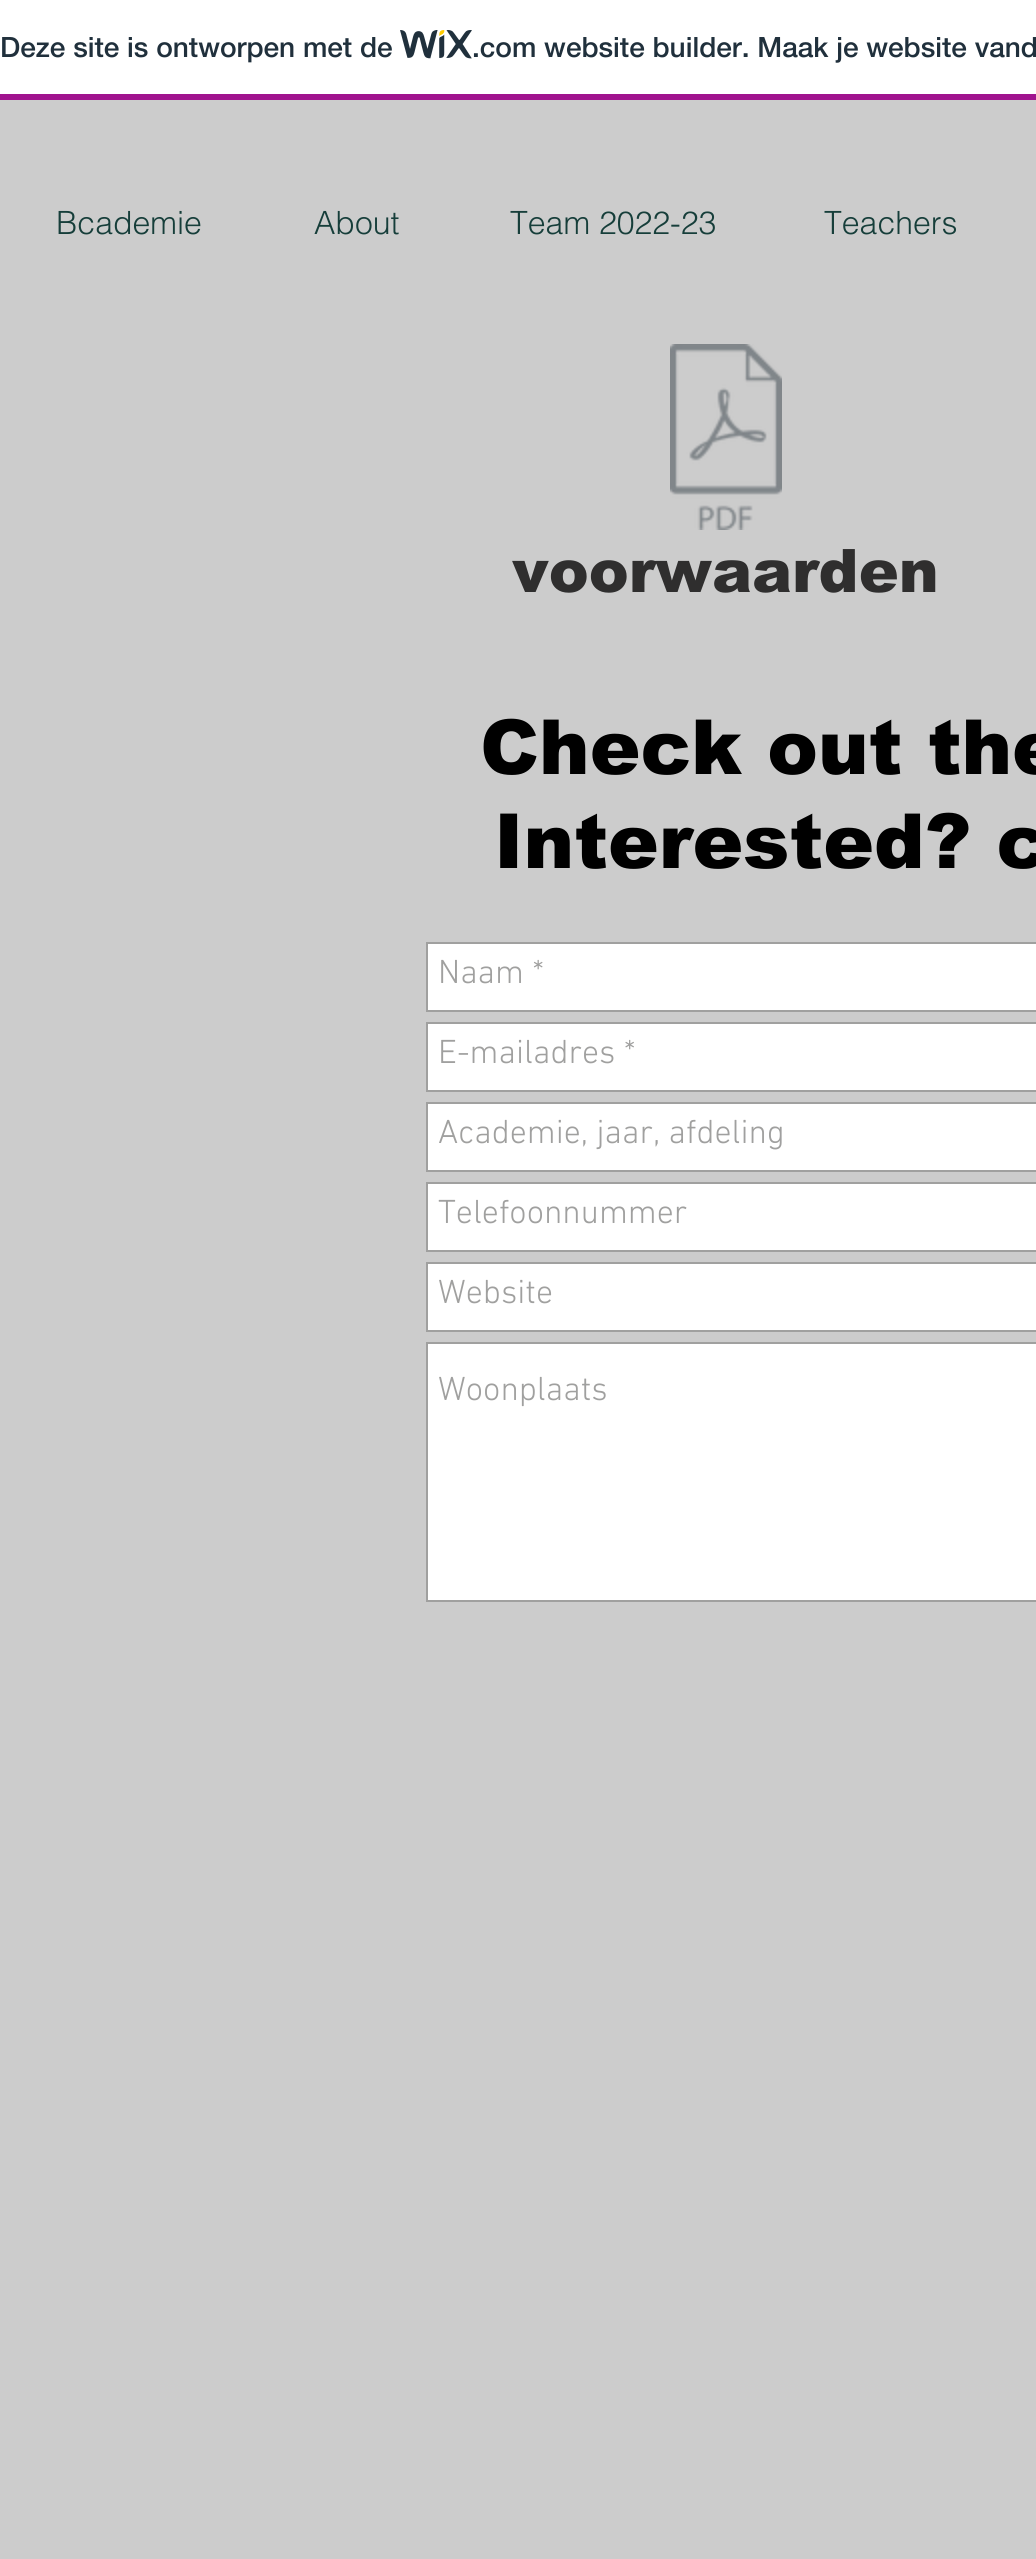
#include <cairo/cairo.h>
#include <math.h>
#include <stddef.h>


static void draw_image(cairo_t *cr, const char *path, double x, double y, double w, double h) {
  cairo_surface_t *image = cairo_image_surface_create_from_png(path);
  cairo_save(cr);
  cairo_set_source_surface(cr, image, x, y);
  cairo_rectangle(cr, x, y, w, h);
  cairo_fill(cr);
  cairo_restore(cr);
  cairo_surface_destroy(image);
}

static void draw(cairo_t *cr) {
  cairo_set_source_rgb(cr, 1, 1, 1);
  cairo_paint(cr);
  cairo_set_source_rgb(cr, 160 / 255.0, 19 / 255.0, 142 / 255.0);
  cairo_rectangle(cr, 0, 94, 1036, 6);
  cairo_fill(cr);
  draw_image(cr, "images/1.png", 400, 30, 72, 29);
  cairo_set_source_rgb(cr, 204 / 255.0, 204 / 255.0, 204 / 255.0);
  cairo_rectangle(cr, 0, 100, 1036, 2459);
  cairo_fill(cr);
  draw_image(cr, "images/2.png", 670, 344, 112, 186);
  cairo_set_source_rgb(cr, 1, 1, 1);
  cairo_rectangle(cr, 427, 943, 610, 68);
  cairo_fill_preserve(cr);
  cairo_set_source_rgb(cr, 160 / 255.0, 160 / 255.0, 159 / 255.0);
  cairo_stroke(cr);
  cairo_set_source_rgb(cr, 1, 1, 1);
  cairo_rectangle(cr, 427, 1023, 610, 68);
  cairo_fill_preserve(cr);
  cairo_set_source_rgb(cr, 160 / 255.0, 160 / 255.0, 159 / 255.0);
  cairo_stroke(cr);
  cairo_set_source_rgb(cr, 1, 1, 1);
  cairo_rectangle(cr, 427, 1103, 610, 68);
  cairo_fill_preserve(cr);
  cairo_set_source_rgb(cr, 160 / 255.0, 160 / 255.0, 159 / 255.0);
  cairo_stroke(cr);
  cairo_set_source_rgb(cr, 1, 1, 1);
  cairo_rectangle(cr, 427, 1183, 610, 68);
  cairo_fill_preserve(cr);
  cairo_set_source_rgb(cr, 160 / 255.0, 160 / 255.0, 159 / 255.0);
  cairo_stroke(cr);
  cairo_set_source_rgb(cr, 1, 1, 1);
  cairo_rectangle(cr, 427, 1263, 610, 68);
  cairo_fill_preserve(cr);
  cairo_set_source_rgb(cr, 160 / 255.0, 160 / 255.0, 159 / 255.0);
  cairo_stroke(cr);
  cairo_set_source_rgb(cr, 1, 1, 1);
  cairo_rectangle(cr, 427, 1343, 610, 258);
  cairo_fill_preserve(cr);
  cairo_set_source_rgb(cr, 160 / 255.0, 160 / 255.0, 159 / 255.0);
  cairo_stroke(cr);
  cairo_select_font_face(cr, "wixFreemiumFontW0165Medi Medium", CAIRO_FONT_SLANT_NORMAL, CAIRO_FONT_WEIGHT_NORMAL);
  cairo_set_font_size(cr, 28);
  cairo_set_source_rgb(cr, 32 / 255.0, 48 / 255.0, 60 / 255.0);
  cairo_move_to(cr, 0, 57);
  cairo_show_text(cr, "Deze site is ontworpen met de");
  cairo_move_to(cr, 472, 57);
  cairo_show_text(cr, ".com website builder. Maak je website vand");
  cairo_select_font_face(cr, "helvetica Light", CAIRO_FONT_SLANT_NORMAL, CAIRO_FONT_WEIGHT_NORMAL);
  cairo_set_font_size(cr, 32);
  cairo_set_source_rgb(cr, 22 / 255.0, 62 / 255.0, 58 / 255.0);
  cairo_move_to(cr, 56, 234);
  cairo_show_text(cr, "Bcademie");
  cairo_move_to(cr, 314, 234);
  cairo_show_text(cr, "About");
  cairo_move_to(cr, 510, 234);
  cairo_show_text(cr, "Team 2022-23");
  cairo_move_to(cr, 824, 234);
  cairo_show_text(cr, "Teachers");
  cairo_select_font_face(cr, "arial Black", CAIRO_FONT_SLANT_NORMAL, CAIRO_FONT_WEIGHT_NORMAL);
  cairo_set_font_size(cr, 60);
  cairo_set_source_rgb(cr, 47 / 255.0, 46 / 255.0, 46 / 255.0);
  cairo_move_to(cr, 512, 592);
  cairo_show_text(cr, "voorwaarden");
  cairo_set_font_size(cr, 76);
  cairo_set_source_rgb(cr, 0, 0, 0);
  cairo_move_to(cr, 480, 774);
  cairo_show_text(cr, "Check out the");
  cairo_move_to(cr, 494, 868);
  cairo_show_text(cr, "Interested? c");
  cairo_select_font_face(cr, "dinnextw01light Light", CAIRO_FONT_SLANT_NORMAL, CAIRO_FONT_WEIGHT_NORMAL);
  cairo_set_font_size(cr, 34);
  cairo_set_source_rgb(cr, 160 / 255.0, 160 / 255.0, 159 / 255.0);
  cairo_move_to(cr, 438, 983);
  cairo_show_text(cr, "Naam *");
  cairo_move_to(cr, 438, 1063);
  cairo_show_text(cr, "E-mailadres *");
  cairo_move_to(cr, 438, 1143);
  cairo_show_text(cr, "Academie, jaar, afdeling");
  cairo_move_to(cr, 438, 1223);
  cairo_show_text(cr, "Telefoonnummer");
  cairo_move_to(cr, 438, 1303);
  cairo_show_text(cr, "Website");
  cairo_move_to(cr, 438, 1400);
  cairo_show_text(cr, "Woonplaats");
}

int main(void) {
  cairo_surface_t *surface = cairo_image_surface_create(CAIRO_FORMAT_RGB24, 1036, 2559);
  cairo_t *cr = cairo_create(surface);
  cairo_font_options_t *options = cairo_font_options_create();
  cairo_font_options_set_hint_metrics(options, CAIRO_HINT_METRICS_OFF);
  cairo_font_options_set_hint_style(options, CAIRO_HINT_STYLE_NONE);
  cairo_set_font_options(cr, options);
  cairo_set_miter_limit(cr, 4);
  draw(cr);
  cairo_surface_write_to_png(surface, "out.png");
  cairo_font_options_destroy(options);
  cairo_destroy(cr);
  cairo_surface_destroy(surface);
  return 0;
}
